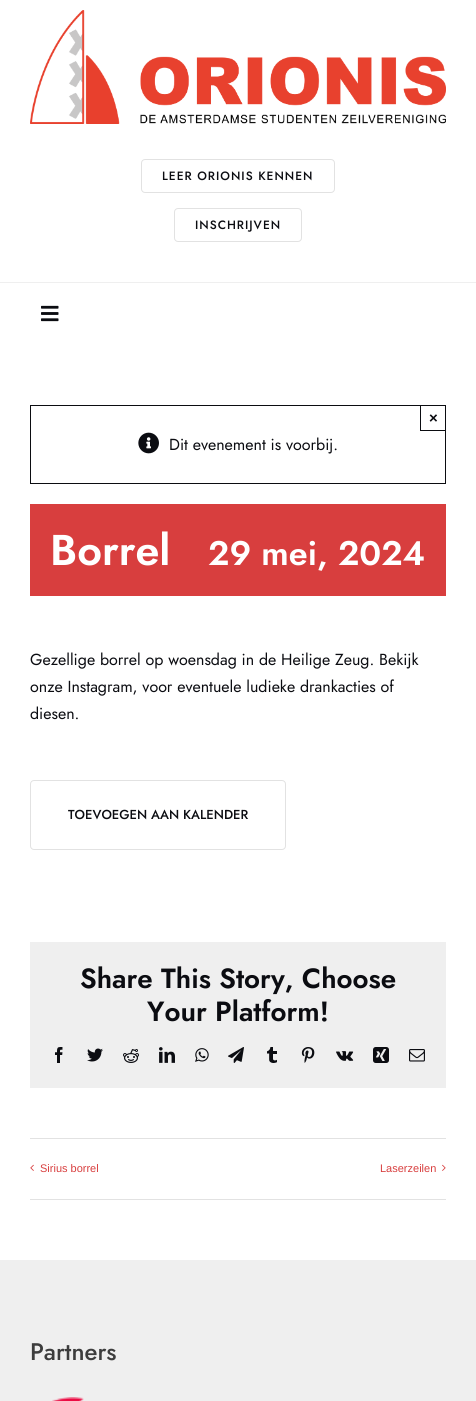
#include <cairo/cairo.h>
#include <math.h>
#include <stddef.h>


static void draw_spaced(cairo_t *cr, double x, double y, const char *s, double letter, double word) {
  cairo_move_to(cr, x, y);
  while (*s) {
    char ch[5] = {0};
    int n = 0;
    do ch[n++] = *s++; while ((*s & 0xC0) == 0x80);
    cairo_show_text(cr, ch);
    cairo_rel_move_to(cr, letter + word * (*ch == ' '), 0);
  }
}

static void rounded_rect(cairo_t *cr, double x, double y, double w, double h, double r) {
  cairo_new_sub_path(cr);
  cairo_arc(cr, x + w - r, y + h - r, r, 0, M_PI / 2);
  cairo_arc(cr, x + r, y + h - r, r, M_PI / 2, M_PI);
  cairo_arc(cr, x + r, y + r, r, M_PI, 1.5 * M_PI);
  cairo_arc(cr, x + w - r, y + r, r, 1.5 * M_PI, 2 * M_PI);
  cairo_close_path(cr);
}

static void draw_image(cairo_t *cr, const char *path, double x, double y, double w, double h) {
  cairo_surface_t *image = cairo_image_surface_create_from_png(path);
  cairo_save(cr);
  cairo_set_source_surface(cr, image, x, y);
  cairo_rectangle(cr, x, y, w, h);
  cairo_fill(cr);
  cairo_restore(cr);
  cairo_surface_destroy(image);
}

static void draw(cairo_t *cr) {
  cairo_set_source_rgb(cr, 1, 1, 1);
  cairo_paint(cr);
  draw_image(cr, "images/1.png", 30, 10, 416, 114);
  cairo_set_source_rgb(cr, 239 / 255.0, 239 / 255.0, 239 / 255.0);
  cairo_rectangle(cr, 0, 282, 476, 1);
  cairo_fill(cr);
  rounded_rect(cr, 141.5, 159.5, 193, 33, 3.5);
  cairo_set_source_rgb(cr, 226 / 255.0, 226 / 255.0, 226 / 255.0);
  cairo_set_line_width(cr, 1);
  cairo_stroke(cr);
  rounded_rect(cr, 174.5, 208.5, 127, 33, 3.5);
  cairo_stroke(cr);
  draw_image(cr, "images/2.png", 41, 305, 18, 17);
  cairo_rectangle(cr, 30.5, 405.5, 415, 78);
  cairo_set_source_rgb(cr, 11 / 255.0, 12 / 255.0, 17 / 255.0);
  cairo_stroke(cr);
  cairo_rectangle(cr, 420, 430, 26, 1);
  cairo_fill(cr);
  cairo_rectangle(cr, 420, 405, 1, 26);
  cairo_fill(cr);
  draw_image(cr, "images/3.png", 138, 432, 21, 22);
  cairo_set_source_rgb(cr, 216 / 255.0, 62 / 255.0, 62 / 255.0);
  cairo_rectangle(cr, 30, 504, 416, 92);
  cairo_fill(cr);
  rounded_rect(cr, 30.5, 780.5, 255, 69, 3.5);
  cairo_set_source_rgb(cr, 226 / 255.0, 226 / 255.0, 226 / 255.0);
  cairo_stroke(cr);
  cairo_set_source_rgb(cr, 239 / 255.0, 239 / 255.0, 239 / 255.0);
  cairo_rectangle(cr, 30, 942, 416, 146);
  cairo_fill(cr);
  draw_image(cr, "images/4.png", 55, 1047, 8, 16);
  draw_image(cr, "images/5.png", 87, 1048, 16, 14);
  draw_image(cr, "images/6.png", 123, 1049, 16, 14);
  draw_image(cr, "images/7.png", 159, 1047, 16, 16);
  draw_image(cr, "images/8.png", 195, 1048, 14, 14);
  draw_image(cr, "images/9.png", 228, 1047, 16, 16);
  draw_image(cr, "images/10.png", 267, 1047, 10, 16);
  draw_image(cr, "images/11.png", 301, 1047, 14, 16);
  draw_image(cr, "images/12.png", 336, 1051, 18, 10);
  draw_image(cr, "images/13.png", 373, 1047, 16, 16);
  draw_image(cr, "images/14.png", 409, 1049, 16, 13);
  cairo_set_source_rgb(cr, 226 / 255.0, 226 / 255.0, 226 / 255.0);
  cairo_rectangle(cr, 30, 1138, 416, 1);
  cairo_fill(cr);
  cairo_rectangle(cr, 30, 1199, 416, 1);
  cairo_fill(cr);
  draw_image(cr, "images/15.png", 30, 1164, 4, 7);
  draw_image(cr, "images/16.png", 442, 1164, 4, 7);
  cairo_set_source_rgb(cr, 239 / 255.0, 239 / 255.0, 239 / 255.0);
  cairo_rectangle(cr, 0, 1260, 476, 141);
  cairo_fill(cr);
  draw_image(cr, "images/17.png", 52, 1397, 32, 4);
  cairo_select_font_face(cr, "Jost Medium", CAIRO_FONT_SLANT_NORMAL, CAIRO_FONT_WEIGHT_NORMAL);
  cairo_set_font_size(cr, 12);
  cairo_set_source_rgb(cr, 11 / 255.0, 12 / 255.0, 17 / 255.0);
  draw_spaced(cr, 162, 180, "LEER ORIONIS KENNEN", 1, 0);
  draw_spaced(cr, 195, 229, "INSCHRIJVEN", 1, 0);
  cairo_select_font_face(cr, "Liberation Sans", CAIRO_FONT_SLANT_NORMAL, CAIRO_FONT_WEIGHT_BOLD);
  cairo_set_font_size(cr, 15);
  cairo_move_to(cr, 429, 423);
  cairo_show_text(cr, "×");
  cairo_select_font_face(cr, "Jost", CAIRO_FONT_SLANT_NORMAL, CAIRO_FONT_WEIGHT_NORMAL);
  cairo_set_font_size(cr, 16);
  cairo_move_to(cr, 169, 450);
  cairo_show_text(cr, "Dit evenement is voorbij.");
  cairo_select_font_face(cr, "Jost SemiBold", CAIRO_FONT_SLANT_NORMAL, CAIRO_FONT_WEIGHT_NORMAL);
  cairo_set_font_size(cr, 43);
  cairo_set_source_rgb(cr, 1, 1, 1);
  cairo_move_to(cr, 50, 565);
  cairo_show_text(cr, "Borrel");
  cairo_set_font_size(cr, 34);
  cairo_move_to(cr, 208, 565);
  cairo_show_text(cr, "29 mei, 2024");
  cairo_select_font_face(cr, "Jost", CAIRO_FONT_SLANT_NORMAL, CAIRO_FONT_WEIGHT_NORMAL);
  cairo_set_font_size(cr, 16);
  cairo_set_source_rgb(cr, 11 / 255.0, 12 / 255.0, 17 / 255.0);
  cairo_move_to(cr, 30, 665);
  cairo_show_text(cr, "Gezellige borrel op woensdag in de Heilige Zeug. Bekijk");
  cairo_move_to(cr, 30, 692);
  cairo_show_text(cr, "onze Instagram, voor eventuele ludieke drankacties of");
  cairo_move_to(cr, 30, 719);
  cairo_show_text(cr, "diesen.");
  cairo_select_font_face(cr, "Jost Medium", CAIRO_FONT_SLANT_NORMAL, CAIRO_FONT_WEIGHT_NORMAL);
  cairo_set_font_size(cr, 13);
  cairo_move_to(cr, 68, 819);
  cairo_show_text(cr, "TOEVOEGEN AAN KALENDER");
  cairo_select_font_face(cr, "Jost SemiBold", CAIRO_FONT_SLANT_NORMAL, CAIRO_FONT_WEIGHT_NORMAL);
  cairo_set_font_size(cr, 27.75);
  cairo_move_to(cr, 80, 988);
  cairo_show_text(cr, "Share This Story, Choose");
  cairo_move_to(cr, 147, 1021);
  cairo_show_text(cr, "Your Platform!");
  cairo_select_font_face(cr, "Liberation Sans", CAIRO_FONT_SLANT_NORMAL, CAIRO_FONT_WEIGHT_NORMAL);
  cairo_set_font_size(cr, 11);
  cairo_set_source_rgb(cr, 216 / 255.0, 62 / 255.0, 62 / 255.0);
  cairo_move_to(cr, 40, 1172);
  cairo_show_text(cr, "Sirius borrel");
  cairo_move_to(cr, 380, 1172);
  cairo_show_text(cr, "Laserzeilen");
  cairo_select_font_face(cr, "Jost Medium", CAIRO_FONT_SLANT_NORMAL, CAIRO_FONT_WEIGHT_NORMAL);
  cairo_set_font_size(cr, 24);
  cairo_set_source_rgb(cr, 61 / 255.0, 61 / 255.0, 61 / 255.0);
  cairo_move_to(cr, 30, 1360);
  cairo_show_text(cr, "Partners");
}

int main(void) {
  cairo_surface_t *surface = cairo_image_surface_create(CAIRO_FORMAT_RGB24, 476, 1401);
  cairo_t *cr = cairo_create(surface);
  cairo_font_options_t *options = cairo_font_options_create();
  cairo_font_options_set_hint_metrics(options, CAIRO_HINT_METRICS_OFF);
  cairo_font_options_set_hint_style(options, CAIRO_HINT_STYLE_NONE);
  cairo_set_font_options(cr, options);
  cairo_set_miter_limit(cr, 4);
  draw(cr);
  cairo_surface_write_to_png(surface, "out.png");
  cairo_font_options_destroy(options);
  cairo_destroy(cr);
  cairo_surface_destroy(surface);
  return 0;
}
